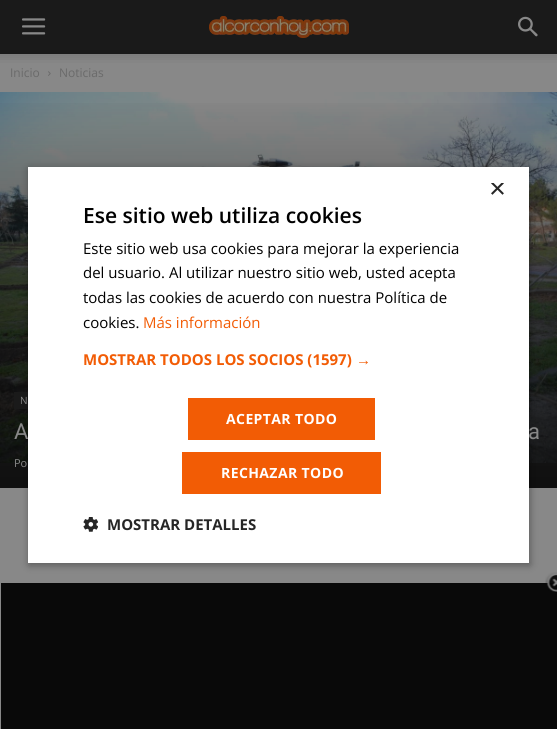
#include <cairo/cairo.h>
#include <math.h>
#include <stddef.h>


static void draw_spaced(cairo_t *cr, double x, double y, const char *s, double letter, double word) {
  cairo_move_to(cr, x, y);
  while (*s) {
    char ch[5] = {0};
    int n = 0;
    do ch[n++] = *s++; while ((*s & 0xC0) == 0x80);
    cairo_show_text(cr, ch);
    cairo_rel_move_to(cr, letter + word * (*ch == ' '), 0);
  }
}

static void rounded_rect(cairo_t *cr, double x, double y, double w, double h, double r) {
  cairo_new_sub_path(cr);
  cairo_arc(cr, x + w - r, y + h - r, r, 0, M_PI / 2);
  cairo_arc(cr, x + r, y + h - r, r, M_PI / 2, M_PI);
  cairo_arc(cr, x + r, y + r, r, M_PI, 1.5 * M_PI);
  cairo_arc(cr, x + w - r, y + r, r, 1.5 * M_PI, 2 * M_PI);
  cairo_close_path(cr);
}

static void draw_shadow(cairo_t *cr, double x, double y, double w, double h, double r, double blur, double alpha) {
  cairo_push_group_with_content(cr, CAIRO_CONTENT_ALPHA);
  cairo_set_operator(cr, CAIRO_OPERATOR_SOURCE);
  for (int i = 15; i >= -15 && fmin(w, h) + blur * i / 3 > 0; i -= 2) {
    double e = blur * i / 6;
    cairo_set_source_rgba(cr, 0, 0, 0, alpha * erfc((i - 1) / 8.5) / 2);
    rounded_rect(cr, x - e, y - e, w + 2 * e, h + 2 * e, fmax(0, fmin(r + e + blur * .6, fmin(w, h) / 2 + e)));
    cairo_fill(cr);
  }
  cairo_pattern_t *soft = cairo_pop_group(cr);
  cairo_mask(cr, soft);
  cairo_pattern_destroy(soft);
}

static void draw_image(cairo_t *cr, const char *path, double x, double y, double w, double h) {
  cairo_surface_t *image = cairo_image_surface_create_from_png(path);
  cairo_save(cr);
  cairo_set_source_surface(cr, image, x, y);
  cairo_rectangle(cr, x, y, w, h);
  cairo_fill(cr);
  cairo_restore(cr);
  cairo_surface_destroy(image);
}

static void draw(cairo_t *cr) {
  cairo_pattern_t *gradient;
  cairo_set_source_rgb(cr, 136 / 255.0, 136 / 255.0, 136 / 255.0);
  cairo_paint(cr);
  cairo_set_source_rgb(cr, 26 / 255.0, 26 / 255.0, 26 / 255.0);
  cairo_rectangle(cr, 0, 0, 557, 54);
  cairo_fill(cr);
  draw_image(cr, "images/1.png", 22, 18, 24, 17);
  draw_image(cr, "images/2.png", 209, 16, 140, 22);
  draw_image(cr, "images/3.png", 518, 16, 20, 21);
  draw_image(cr, "images/4.png", 0, 54, 557, 9);
  draw_image(cr, "images/5.png", 48, 71, 3, 5);
  cairo_set_source_rgb(cr, 43 / 255.0, 43 / 255.0, 43 / 255.0);
  cairo_rectangle(cr, 0, 463, 557, 25);
  cairo_fill(cr);
  draw_image(cr, "images/6.png", 0, 92, 557, 371);
  gradient = cairo_pattern_create_linear(279, 92, 279, 488);
  cairo_pattern_add_color_stop_rgba(gradient, 0, 9 / 255.0, 9 / 255.0, 9 / 255.0, 0);
  cairo_pattern_add_color_stop_rgba(gradient, 1, 9 / 255.0, 9 / 255.0, 9 / 255.0, 0.8);
  cairo_set_source(cr, gradient);
  cairo_pattern_destroy(gradient);
  cairo_rectangle(cr, 0, 103, 557, 385);
  cairo_fill(cr);
  cairo_set_source_rgb(cr, 26 / 255.0, 26 / 255.0, 26 / 255.0);
  cairo_rectangle(cr, 14, 392, 14, 17);
  cairo_fill(cr);
  cairo_set_source_rgb(cr, 0, 0, 0);
  draw_shadow(cr, 29, 169, 501, 396, 0, 4, 0.35);
  cairo_set_source_rgb(cr, 9 / 255.0, 9 / 255.0, 9 / 255.0);
  cairo_rectangle(cr, 1, 583, 556, 146);
  cairo_fill(cr);
  draw_image(cr, "images/8.png", 545, 572, 12, 20);
  cairo_select_font_face(cr, "Open Sans", CAIRO_FONT_SLANT_NORMAL, CAIRO_FONT_WEIGHT_NORMAL);
  cairo_set_font_size(cr, 12);
  cairo_set_source_rgb(cr, 106 / 255.0, 106 / 255.0, 106 / 255.0);
  cairo_move_to(cr, 10, 77);
  cairo_show_text(cr, "Inicio");
  cairo_move_to(cr, 59, 77);
  cairo_show_text(cr, "Noticias");
  cairo_set_font_size(cr, 10);
  cairo_set_source_rgb(cr, 136 / 255.0, 136 / 255.0, 136 / 255.0);
  cairo_move_to(cr, 20, 404);
  cairo_show_text(cr, "N");
  cairo_select_font_face(cr, "Roboto", CAIRO_FONT_SLANT_NORMAL, CAIRO_FONT_WEIGHT_NORMAL);
  cairo_set_font_size(cr, 22);
  cairo_move_to(cr, 14, 439);
  cairo_show_text(cr, "A");
  cairo_move_to(cr, 528, 439);
  cairo_show_text(cr, "a");
  cairo_select_font_face(cr, "Open Sans", CAIRO_FONT_SLANT_NORMAL, CAIRO_FONT_WEIGHT_NORMAL);
  cairo_set_font_size(cr, 11);
  cairo_move_to(cr, 14, 467);
  cairo_show_text(cr, "Po");
  cairo_set_source_rgb(cr, 1, 1, 1);
  cairo_rectangle(cr, 28, 167, 501, 396);
  cairo_fill(cr);
  cairo_save(cr);
  cairo_rectangle(cr, 489, 183, 15, 15);
  cairo_clip(cr);
  cairo_select_font_face(cr, "Liberation Sans", CAIRO_FONT_SLANT_NORMAL, CAIRO_FONT_WEIGHT_NORMAL);
  cairo_set_font_size(cr, 29);
  cairo_set_source_rgb(cr, 38 / 255.0, 38 / 255.0, 38 / 255.0);
  cairo_move_to(cr, 489, 198);
  cairo_show_text(cr, "×");
  cairo_restore(cr);
  cairo_select_font_face(cr, "Open Sans SemiBold", CAIRO_FONT_SLANT_NORMAL, CAIRO_FONT_WEIGHT_NORMAL);
  cairo_set_font_size(cr, 21);
  cairo_set_source_rgb(cr, 0, 0, 0);
  cairo_move_to(cr, 83, 223);
  cairo_show_text(cr, "Ese sitio web utiliza cookies");
  cairo_select_font_face(cr, "Open Sans", CAIRO_FONT_SLANT_NORMAL, CAIRO_FONT_WEIGHT_NORMAL);
  cairo_set_font_size(cr, 15);
  cairo_move_to(cr, 83, 254);
  cairo_show_text(cr, "Este sitio web usa cookies para mejorar la experiencia");
  cairo_move_to(cr, 83, 278);
  cairo_show_text(cr, "del usuario. Al utilizar nuestro sitio web, usted acepta");
  cairo_move_to(cr, 83, 303);
  cairo_show_text(cr, "todas las cookies de acuerdo con nuestra Política de");
  cairo_move_to(cr, 83, 328);
  cairo_show_text(cr, "cookies.");
  cairo_set_source_rgb(cr, 242 / 255.0, 92 / 255.0, 5 / 255.0);
  cairo_move_to(cr, 143, 328);
  cairo_show_text(cr, "Más información");
  cairo_select_font_face(cr, "Open Sans", CAIRO_FONT_SLANT_NORMAL, CAIRO_FONT_WEIGHT_BOLD);
  cairo_move_to(cr, 83, 365);
  cairo_show_text(cr, "MOSTRAR TODOS LOS SOCIOS (1597)");
  cairo_select_font_face(cr, "Liberation Sans", CAIRO_FONT_SLANT_NORMAL, CAIRO_FONT_WEIGHT_BOLD);
  cairo_move_to(cr, 356, 365);
  cairo_show_text(cr, "→");
  cairo_rectangle(cr, 188, 398, 187, 42);
  cairo_fill(cr);
  cairo_select_font_face(cr, "Open Sans", CAIRO_FONT_SLANT_NORMAL, CAIRO_FONT_WEIGHT_BOLD);
  cairo_set_font_size(cr, 14);
  cairo_set_source_rgb(cr, 1, 1, 1);
  draw_spaced(cr, 226, 424, "ACEPTAR TODO", 0.4, 0);
  cairo_set_source_rgb(cr, 242 / 255.0, 92 / 255.0, 5 / 255.0);
  cairo_rectangle(cr, 182, 452, 199, 42);
  cairo_fill(cr);
  cairo_set_source_rgb(cr, 1, 1, 1);
  draw_spaced(cr, 221, 478, "RECHAZAR TODO", 0.4, 0);
  draw_image(cr, "images/7.png", 83, 517, 15, 15);
  cairo_set_font_size(cr, 15);
  cairo_set_source_rgb(cr, 38 / 255.0, 38 / 255.0, 38 / 255.0);
  cairo_move_to(cr, 107, 530);
  cairo_show_text(cr, "MOSTRAR DETALLES");
}

int main(void) {
  cairo_surface_t *surface = cairo_image_surface_create(CAIRO_FORMAT_RGB24, 557, 729);
  cairo_t *cr = cairo_create(surface);
  cairo_font_options_t *options = cairo_font_options_create();
  cairo_font_options_set_hint_metrics(options, CAIRO_HINT_METRICS_OFF);
  cairo_font_options_set_hint_style(options, CAIRO_HINT_STYLE_NONE);
  cairo_set_font_options(cr, options);
  cairo_set_miter_limit(cr, 4);
  draw(cr);
  cairo_surface_write_to_png(surface, "out.png");
  cairo_font_options_destroy(options);
  cairo_destroy(cr);
  cairo_surface_destroy(surface);
  return 0;
}
